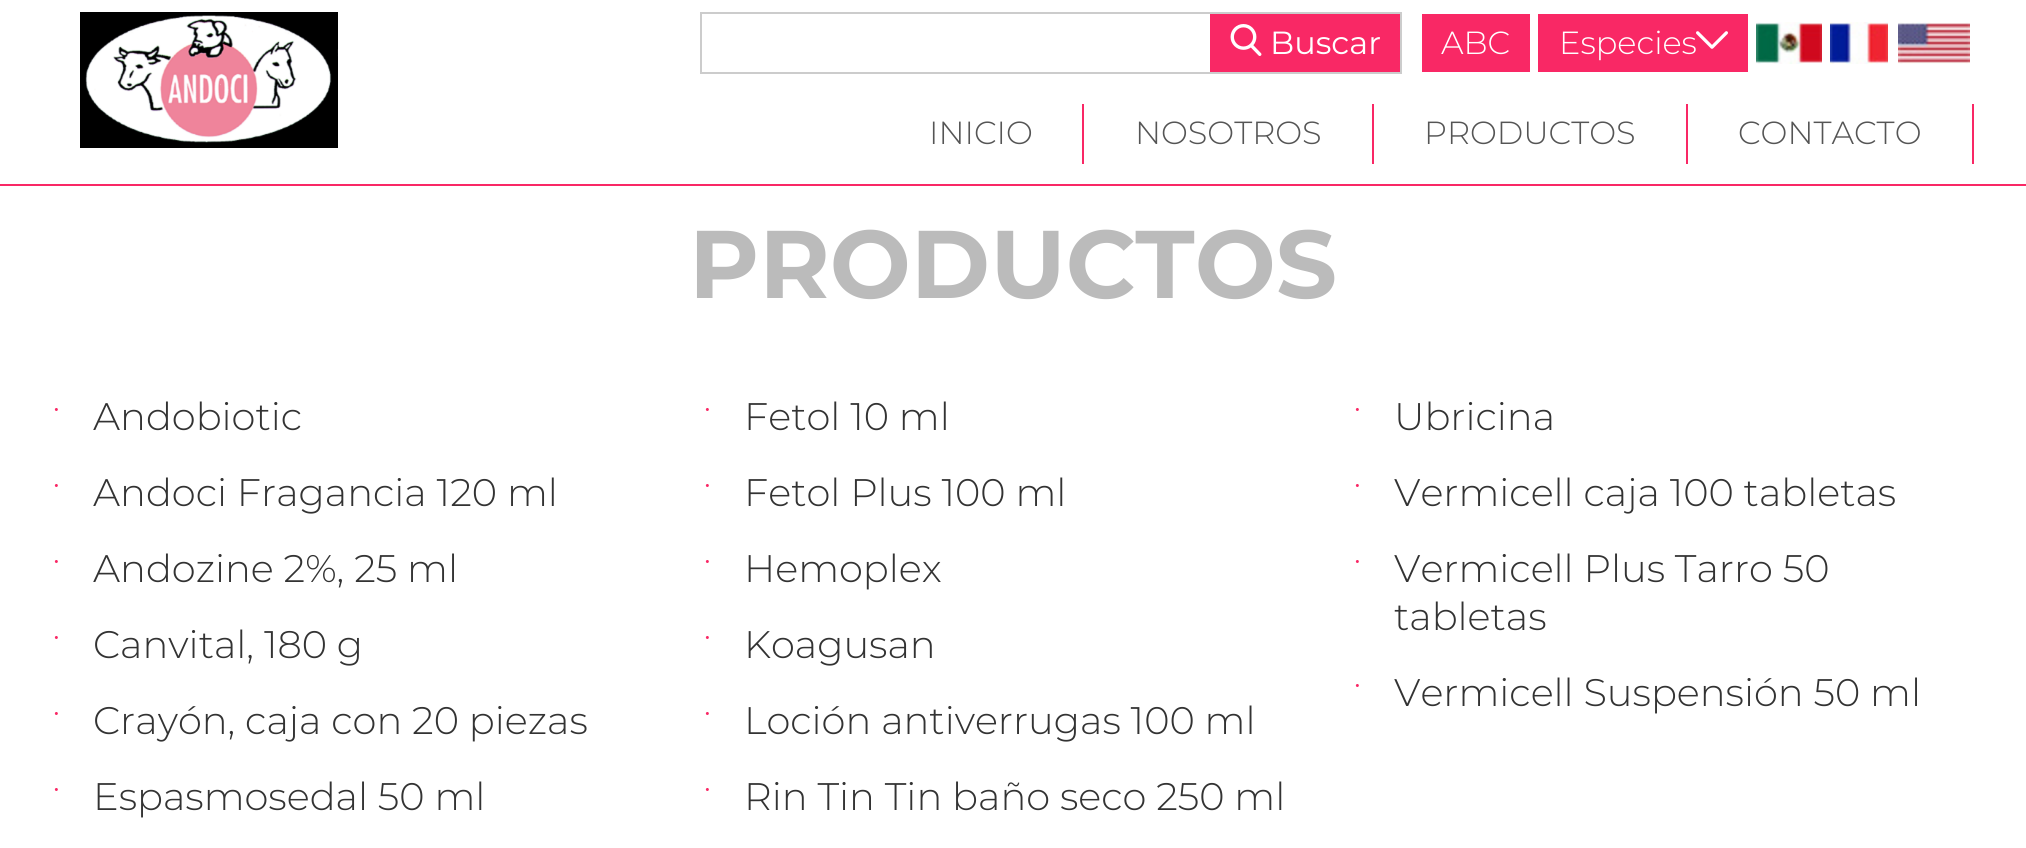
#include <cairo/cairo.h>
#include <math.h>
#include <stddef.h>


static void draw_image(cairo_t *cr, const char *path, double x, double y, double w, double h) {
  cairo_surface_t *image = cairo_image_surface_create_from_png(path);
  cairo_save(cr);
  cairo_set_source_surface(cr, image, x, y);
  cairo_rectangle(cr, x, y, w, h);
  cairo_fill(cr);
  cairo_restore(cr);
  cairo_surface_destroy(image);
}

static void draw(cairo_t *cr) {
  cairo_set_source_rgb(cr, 1, 1, 1);
  cairo_paint(cr);
  cairo_set_source_rgb(cr, 249 / 255.0, 40 / 255.0, 101 / 255.0);
  cairo_rectangle(cr, 0, 184, 2026, 2);
  cairo_fill(cr);
  draw_image(cr, "images/1.png", 80, 12, 258, 136);
  cairo_rectangle(cr, 701, 13, 700, 60);
  cairo_set_source_rgb(cr, 204 / 255.0, 204 / 255.0, 204 / 255.0);
  cairo_stroke(cr);
  cairo_set_source_rgb(cr, 249 / 255.0, 40 / 255.0, 101 / 255.0);
  cairo_rectangle(cr, 1210, 14, 190, 58);
  cairo_fill(cr);
  draw_image(cr, "images/2.png", 1230, 24, 32, 32);
  cairo_rectangle(cr, 1422, 14, 108, 58);
  cairo_fill(cr);
  cairo_rectangle(cr, 1538, 14, 210, 58);
  cairo_fill(cr);
  draw_image(cr, "images/3.png", 1696, 31, 32, 18);
  draw_image(cr, "images/4.png", 1756, 22, 66, 42);
  draw_image(cr, "images/5.png", 1830, 22, 58, 42);
  draw_image(cr, "images/6.png", 1898, 22, 72, 42);
  cairo_rectangle(cr, 1082, 104, 2, 60);
  cairo_fill(cr);
  cairo_rectangle(cr, 1372, 104, 2, 60);
  cairo_fill(cr);
  cairo_rectangle(cr, 1686, 104, 2, 60);
  cairo_fill(cr);
  cairo_rectangle(cr, 1972, 104, 2, 60);
  cairo_fill(cr);
  cairo_select_font_face(cr, "Montserrat", CAIRO_FONT_SLANT_NORMAL, CAIRO_FONT_WEIGHT_NORMAL);
  cairo_set_font_size(cr, 32);
  cairo_set_source_rgb(cr, 1, 1, 1);
  cairo_move_to(cr, 1270, 54);
  cairo_show_text(cr, "Buscar");
  cairo_select_font_face(cr, "Montserrat Light", CAIRO_FONT_SLANT_NORMAL, CAIRO_FONT_WEIGHT_NORMAL);
  cairo_move_to(cr, 1441, 54);
  cairo_show_text(cr, "ABC");
  cairo_move_to(cr, 1559, 54);
  cairo_show_text(cr, "Especies");
  cairo_set_source_rgb(cr, 85 / 255.0, 85 / 255.0, 85 / 255.0);
  cairo_move_to(cr, 929, 144);
  cairo_show_text(cr, "INICIO");
  cairo_move_to(cr, 1135, 144);
  cairo_show_text(cr, "NOSOTROS");
  cairo_move_to(cr, 1424, 144);
  cairo_show_text(cr, "PRODUCTOS");
  cairo_move_to(cr, 1738, 144);
  cairo_show_text(cr, "CONTACTO");
  cairo_select_font_face(cr, "Montserrat", CAIRO_FONT_SLANT_NORMAL, CAIRO_FONT_WEIGHT_BOLD);
  cairo_set_font_size(cr, 96);
  cairo_set_source_rgb(cr, 187 / 255.0, 187 / 255.0, 187 / 255.0);
  cairo_move_to(cr, 689, 298);
  cairo_show_text(cr, "PRODUCTOS");
  cairo_select_font_face(cr, "Montserrat Light", CAIRO_FONT_SLANT_NORMAL, CAIRO_FONT_WEIGHT_NORMAL);
  cairo_set_font_size(cr, 24);
  cairo_set_source_rgb(cr, 249 / 255.0, 40 / 255.0, 101 / 255.0);
  cairo_move_to(cr, 53, 416);
  cairo_show_text(cr, "•");
  cairo_set_font_size(cr, 38.4);
  cairo_set_source_rgb(cr, 51 / 255.0, 51 / 255.0, 51 / 255.0);
  cairo_move_to(cr, 93, 430);
  cairo_show_text(cr, "Andobiotic");
  cairo_set_font_size(cr, 24);
  cairo_set_source_rgb(cr, 249 / 255.0, 40 / 255.0, 101 / 255.0);
  cairo_move_to(cr, 704, 416);
  cairo_show_text(cr, "•");
  cairo_set_font_size(cr, 38.4);
  cairo_set_source_rgb(cr, 51 / 255.0, 51 / 255.0, 51 / 255.0);
  cairo_move_to(cr, 744, 430);
  cairo_show_text(cr, "Fetol 10 ml");
  cairo_set_font_size(cr, 24);
  cairo_set_source_rgb(cr, 249 / 255.0, 40 / 255.0, 101 / 255.0);
  cairo_move_to(cr, 1354, 416);
  cairo_show_text(cr, "•");
  cairo_set_font_size(cr, 38.4);
  cairo_set_source_rgb(cr, 51 / 255.0, 51 / 255.0, 51 / 255.0);
  cairo_move_to(cr, 1394, 430);
  cairo_show_text(cr, "Ubricina");
  cairo_set_font_size(cr, 24);
  cairo_set_source_rgb(cr, 249 / 255.0, 40 / 255.0, 101 / 255.0);
  cairo_move_to(cr, 53, 492);
  cairo_show_text(cr, "•");
  cairo_set_font_size(cr, 38.4);
  cairo_set_source_rgb(cr, 51 / 255.0, 51 / 255.0, 51 / 255.0);
  cairo_move_to(cr, 93, 506);
  cairo_show_text(cr, "Andoci Fragancia 120 ml");
  cairo_set_font_size(cr, 24);
  cairo_set_source_rgb(cr, 249 / 255.0, 40 / 255.0, 101 / 255.0);
  cairo_move_to(cr, 704, 492);
  cairo_show_text(cr, "•");
  cairo_set_font_size(cr, 38.4);
  cairo_set_source_rgb(cr, 51 / 255.0, 51 / 255.0, 51 / 255.0);
  cairo_move_to(cr, 744, 506);
  cairo_show_text(cr, "Fetol Plus 100 ml");
  cairo_set_font_size(cr, 24);
  cairo_set_source_rgb(cr, 249 / 255.0, 40 / 255.0, 101 / 255.0);
  cairo_move_to(cr, 1354, 492);
  cairo_show_text(cr, "•");
  cairo_set_font_size(cr, 38.4);
  cairo_set_source_rgb(cr, 51 / 255.0, 51 / 255.0, 51 / 255.0);
  cairo_move_to(cr, 1394, 506);
  cairo_show_text(cr, "Vermicell caja 100 tabletas");
  cairo_set_font_size(cr, 24);
  cairo_set_source_rgb(cr, 249 / 255.0, 40 / 255.0, 101 / 255.0);
  cairo_move_to(cr, 53, 568);
  cairo_show_text(cr, "•");
  cairo_set_font_size(cr, 38.4);
  cairo_set_source_rgb(cr, 51 / 255.0, 51 / 255.0, 51 / 255.0);
  cairo_move_to(cr, 93, 582);
  cairo_show_text(cr, "Andozine 2%, 25 ml");
  cairo_set_font_size(cr, 24);
  cairo_set_source_rgb(cr, 249 / 255.0, 40 / 255.0, 101 / 255.0);
  cairo_move_to(cr, 704, 568);
  cairo_show_text(cr, "•");
  cairo_set_font_size(cr, 38.4);
  cairo_set_source_rgb(cr, 51 / 255.0, 51 / 255.0, 51 / 255.0);
  cairo_move_to(cr, 744, 582);
  cairo_show_text(cr, "Hemoplex");
  cairo_set_font_size(cr, 24);
  cairo_set_source_rgb(cr, 249 / 255.0, 40 / 255.0, 101 / 255.0);
  cairo_move_to(cr, 1354, 568);
  cairo_show_text(cr, "•");
  cairo_set_font_size(cr, 38.4);
  cairo_set_source_rgb(cr, 51 / 255.0, 51 / 255.0, 51 / 255.0);
  cairo_move_to(cr, 1394, 582);
  cairo_show_text(cr, "Vermicell Plus Tarro 50");
  cairo_move_to(cr, 1394, 630);
  cairo_show_text(cr, "tabletas");
  cairo_set_font_size(cr, 24);
  cairo_set_source_rgb(cr, 249 / 255.0, 40 / 255.0, 101 / 255.0);
  cairo_move_to(cr, 53, 644);
  cairo_show_text(cr, "•");
  cairo_set_font_size(cr, 38.4);
  cairo_set_source_rgb(cr, 51 / 255.0, 51 / 255.0, 51 / 255.0);
  cairo_move_to(cr, 93, 658);
  cairo_show_text(cr, "Canvital, 180 g");
  cairo_set_font_size(cr, 24);
  cairo_set_source_rgb(cr, 249 / 255.0, 40 / 255.0, 101 / 255.0);
  cairo_move_to(cr, 704, 644);
  cairo_show_text(cr, "•");
  cairo_set_font_size(cr, 38.4);
  cairo_set_source_rgb(cr, 51 / 255.0, 51 / 255.0, 51 / 255.0);
  cairo_move_to(cr, 744, 658);
  cairo_show_text(cr, "Koagusan");
  cairo_set_font_size(cr, 24);
  cairo_set_source_rgb(cr, 249 / 255.0, 40 / 255.0, 101 / 255.0);
  cairo_move_to(cr, 1354, 692);
  cairo_show_text(cr, "•");
  cairo_set_font_size(cr, 38.4);
  cairo_set_source_rgb(cr, 51 / 255.0, 51 / 255.0, 51 / 255.0);
  cairo_move_to(cr, 1394, 706);
  cairo_show_text(cr, "Vermicell Suspensión 50 ml");
  cairo_set_font_size(cr, 24);
  cairo_set_source_rgb(cr, 249 / 255.0, 40 / 255.0, 101 / 255.0);
  cairo_move_to(cr, 53, 720);
  cairo_show_text(cr, "•");
  cairo_set_font_size(cr, 38.4);
  cairo_set_source_rgb(cr, 51 / 255.0, 51 / 255.0, 51 / 255.0);
  cairo_move_to(cr, 93, 734);
  cairo_show_text(cr, "Crayón, caja con 20 piezas");
  cairo_set_font_size(cr, 24);
  cairo_set_source_rgb(cr, 249 / 255.0, 40 / 255.0, 101 / 255.0);
  cairo_move_to(cr, 704, 720);
  cairo_show_text(cr, "•");
  cairo_set_font_size(cr, 38.4);
  cairo_set_source_rgb(cr, 51 / 255.0, 51 / 255.0, 51 / 255.0);
  cairo_move_to(cr, 744, 734);
  cairo_show_text(cr, "Loción antiverrugas 100 ml");
  cairo_set_font_size(cr, 24);
  cairo_set_source_rgb(cr, 249 / 255.0, 40 / 255.0, 101 / 255.0);
  cairo_move_to(cr, 53, 796);
  cairo_show_text(cr, "•");
  cairo_set_font_size(cr, 38.4);
  cairo_set_source_rgb(cr, 51 / 255.0, 51 / 255.0, 51 / 255.0);
  cairo_move_to(cr, 93, 810);
  cairo_show_text(cr, "Espasmosedal 50 ml");
  cairo_set_font_size(cr, 24);
  cairo_set_source_rgb(cr, 249 / 255.0, 40 / 255.0, 101 / 255.0);
  cairo_move_to(cr, 704, 796);
  cairo_show_text(cr, "•");
  cairo_set_font_size(cr, 38.4);
  cairo_set_source_rgb(cr, 51 / 255.0, 51 / 255.0, 51 / 255.0);
  cairo_move_to(cr, 744, 810);
  cairo_show_text(cr, "Rin Tin Tin baño seco 250 ml");
}

int main(void) {
  cairo_surface_t *surface = cairo_image_surface_create(CAIRO_FORMAT_RGB24, 2026, 848);
  cairo_t *cr = cairo_create(surface);
  cairo_font_options_t *options = cairo_font_options_create();
  cairo_font_options_set_hint_metrics(options, CAIRO_HINT_METRICS_OFF);
  cairo_font_options_set_hint_style(options, CAIRO_HINT_STYLE_NONE);
  cairo_set_font_options(cr, options);
  cairo_set_miter_limit(cr, 4);
  draw(cr);
  cairo_surface_write_to_png(surface, "out.png");
  cairo_font_options_destroy(options);
  cairo_destroy(cr);
  cairo_surface_destroy(surface);
  return 0;
}
